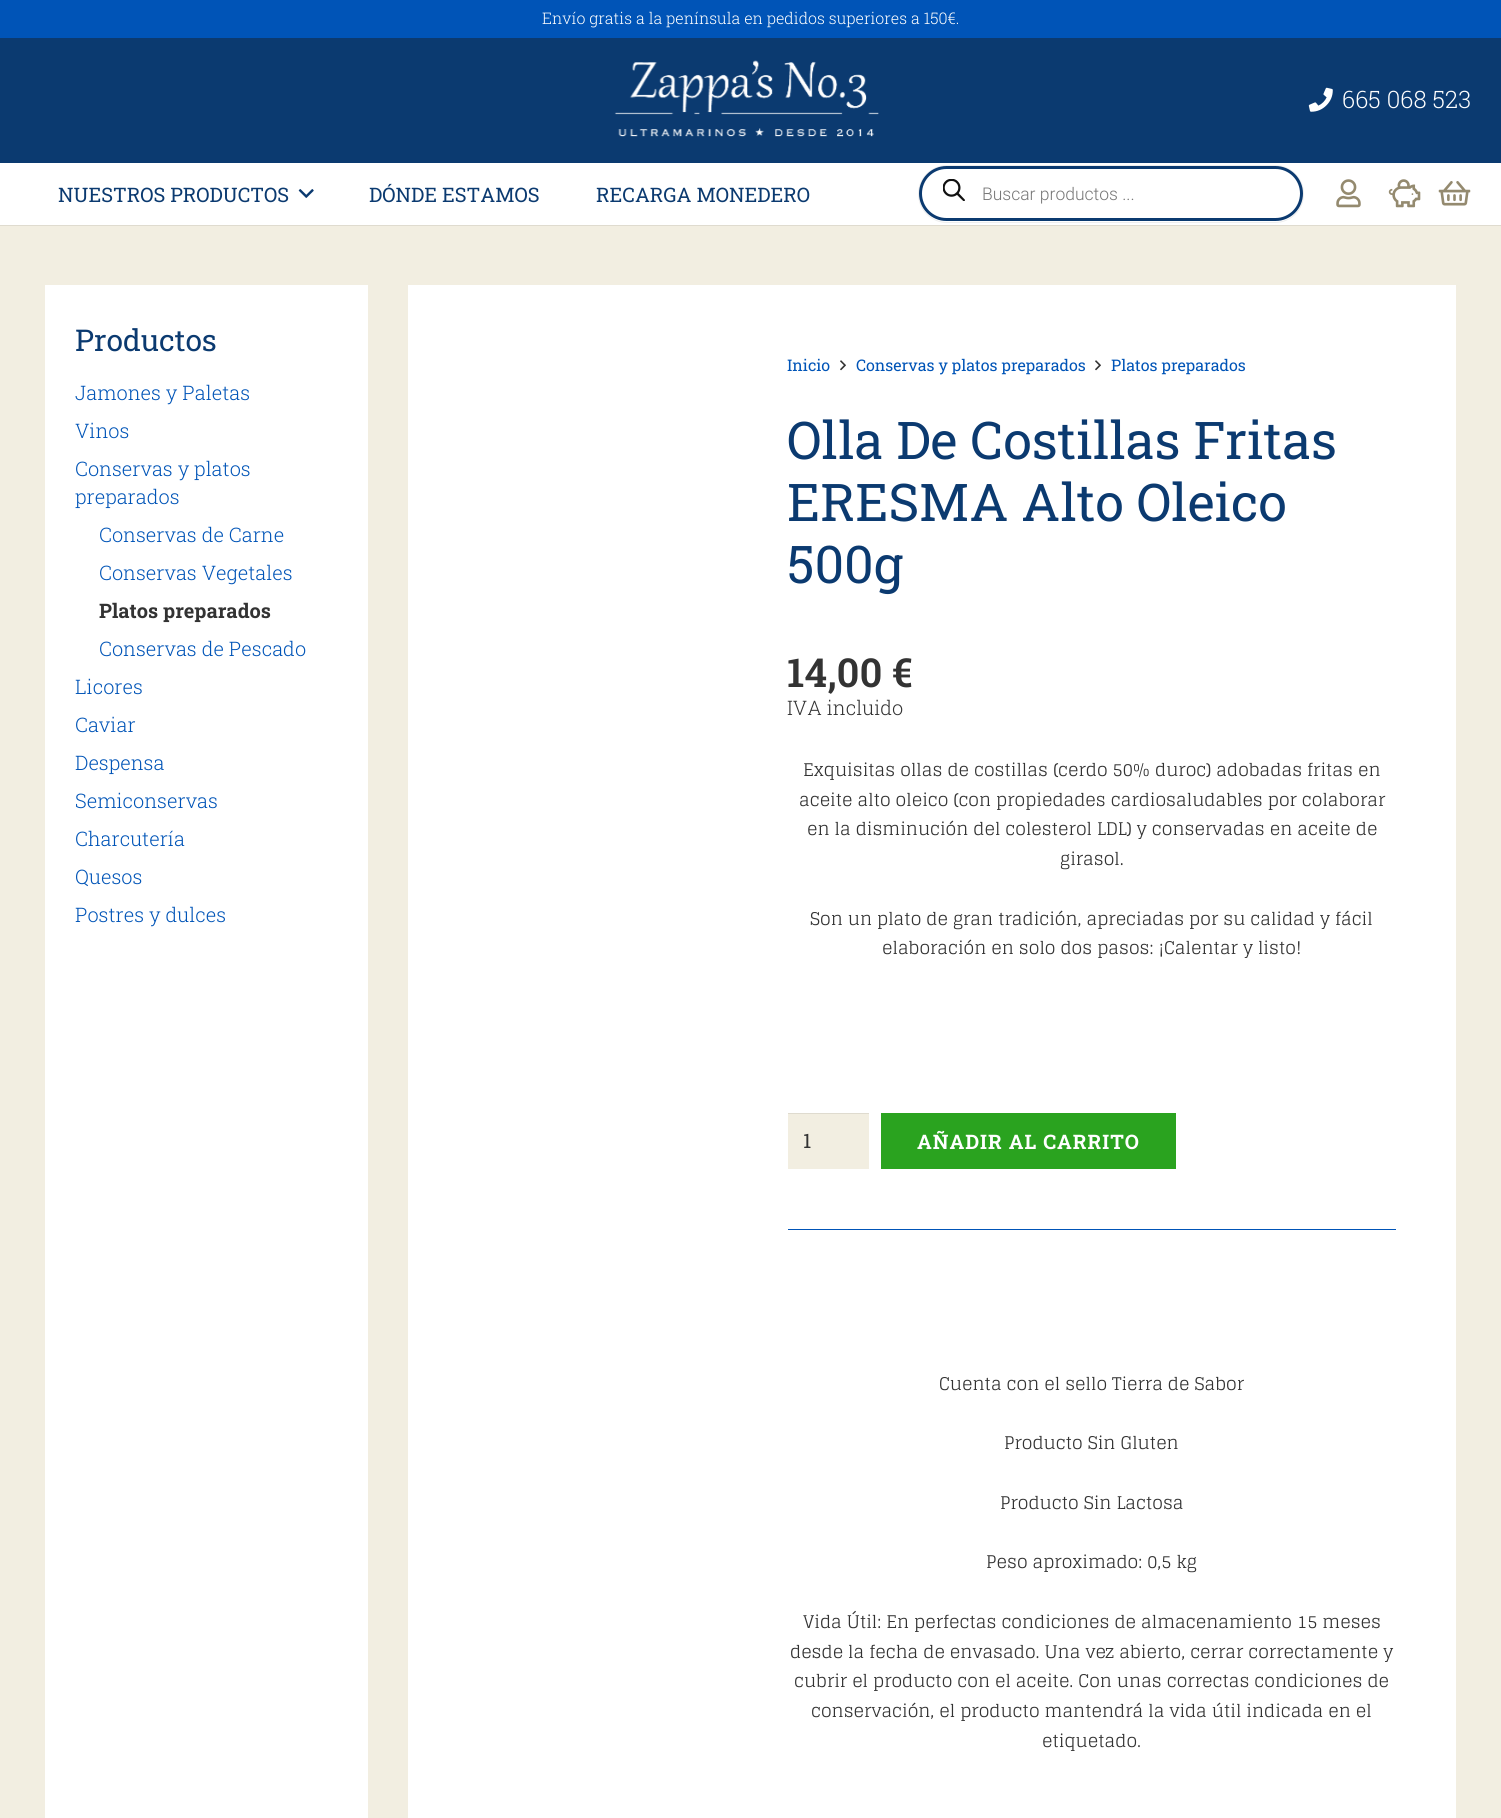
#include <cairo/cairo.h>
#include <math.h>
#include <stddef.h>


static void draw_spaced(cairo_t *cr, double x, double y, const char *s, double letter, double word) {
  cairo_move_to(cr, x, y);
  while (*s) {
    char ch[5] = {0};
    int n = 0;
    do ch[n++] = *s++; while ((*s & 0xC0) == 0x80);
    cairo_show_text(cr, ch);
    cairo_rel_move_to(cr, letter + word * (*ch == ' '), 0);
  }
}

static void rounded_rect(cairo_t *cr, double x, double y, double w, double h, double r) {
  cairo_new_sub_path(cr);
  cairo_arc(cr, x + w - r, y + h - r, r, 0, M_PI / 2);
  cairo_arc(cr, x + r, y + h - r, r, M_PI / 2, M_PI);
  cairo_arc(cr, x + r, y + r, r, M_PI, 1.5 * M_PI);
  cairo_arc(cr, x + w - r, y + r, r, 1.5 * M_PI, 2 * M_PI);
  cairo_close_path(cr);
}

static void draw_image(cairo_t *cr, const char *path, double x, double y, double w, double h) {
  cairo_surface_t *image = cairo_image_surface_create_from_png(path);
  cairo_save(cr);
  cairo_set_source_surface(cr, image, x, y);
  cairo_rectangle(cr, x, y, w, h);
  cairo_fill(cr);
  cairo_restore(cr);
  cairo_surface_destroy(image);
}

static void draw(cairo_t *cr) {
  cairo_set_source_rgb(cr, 242 / 255.0, 238 / 255.0, 225 / 255.0);
  cairo_paint(cr);
  cairo_set_source_rgb(cr, 0, 84 / 255.0, 183 / 255.0);
  cairo_rectangle(cr, 0, 0, 1501, 38);
  cairo_fill(cr);
  cairo_set_source_rgb(cr, 11 / 255.0, 58 / 255.0, 112 / 255.0);
  cairo_rectangle(cr, 0, 38, 1501, 125);
  cairo_fill(cr);
  draw_image(cr, "images/1.png", 614, 60, 265, 77);
  draw_image(cr, "images/2.png", 1308, 87, 25, 25);
  cairo_set_source_rgb(cr, 223 / 255.0, 219 / 255.0, 207 / 255.0);
  cairo_rectangle(cr, 0, 225, 1501, 1);
  cairo_fill(cr);
  cairo_set_source_rgb(cr, 1, 1, 1);
  cairo_rectangle(cr, 0, 163, 1501, 62);
  cairo_fill(cr);
  draw_image(cr, "images/3.png", 298, 189, 16, 9);
  rounded_rect(cr, 918.5, 165.5, 385, 57, 28.5);
  cairo_set_source_rgb(cr, 238 / 255.0, 238 / 255.0, 238 / 255.0);
  cairo_set_line_width(cr, 1);
  cairo_stroke(cr);
  cairo_set_source_rgb(cr, 1, 1, 1);
  rounded_rect(cr, 920.5, 167.5, 381, 52, 26);
  cairo_fill_preserve(cr);
  cairo_set_source_rgb(cr, 11 / 255.0, 58 / 255.0, 112 / 255.0);
  cairo_set_line_width(cr, 3);
  cairo_stroke(cr);
  draw_image(cr, "images/4.png", 943, 179, 22, 22);
  draw_image(cr, "images/5.png", 1336, 179, 25, 29);
  draw_image(cr, "images/6.png", 1388, 179, 33, 29);
  draw_image(cr, "images/7.png", 1438, 181, 33, 25);
  cairo_set_source_rgb(cr, 1, 1, 1);
  cairo_rectangle(cr, 45, 285, 323, 1533);
  cairo_fill(cr);
  cairo_rectangle(cr, 408, 285, 1048, 1533);
  cairo_fill(cr);
  draw_image(cr, "images/8.png", 840, 360, 6, 11);
  draw_image(cr, "images/8.png", 1095, 360, 6, 11);
  cairo_set_source_rgb(cr, 242 / 255.0, 238 / 255.0, 225 / 255.0);
  cairo_rectangle(cr, 788, 1114, 81, 55);
  cairo_fill(cr);
  cairo_set_source_rgb(cr, 223 / 255.0, 219 / 255.0, 207 / 255.0);
  cairo_rectangle(cr, 788, 1113, 81, 1);
  cairo_fill(cr);
  cairo_set_source_rgb(cr, 42 / 255.0, 163 / 255.0, 31 / 255.0);
  cairo_rectangle(cr, 881, 1113, 295, 56);
  cairo_fill(cr);
  cairo_set_source_rgb(cr, 0, 84 / 255.0, 183 / 255.0);
  cairo_rectangle(cr, 788, 1229, 608, 1);
  cairo_fill(cr);
  cairo_select_font_face(cr, "Roboto Slab Light", CAIRO_FONT_SLANT_NORMAL, CAIRO_FONT_WEIGHT_NORMAL);
  cairo_set_font_size(cr, 16);
  cairo_set_source_rgb(cr, 1, 1, 1);
  cairo_move_to(cr, 542, 24);
  cairo_show_text(cr, "Envío gratis a la península en pedidos superiores a 150€.");
  cairo_set_font_size(cr, 24);
  cairo_move_to(cr, 1342, 108);
  cairo_show_text(cr, "665 068 523");
  cairo_select_font_face(cr, "Roboto Slab", CAIRO_FONT_SLANT_NORMAL, CAIRO_FONT_WEIGHT_NORMAL);
  cairo_set_font_size(cr, 20);
  cairo_set_source_rgb(cr, 11 / 255.0, 58 / 255.0, 112 / 255.0);
  cairo_move_to(cr, 58, 202);
  cairo_show_text(cr, "NUESTROS PRODUCTOS");
  cairo_move_to(cr, 369, 202);
  cairo_show_text(cr, "DÓNDE ESTAMOS");
  cairo_move_to(cr, 596, 202);
  cairo_show_text(cr, "RECARGA MONEDERO");
  cairo_select_font_face(cr, "Roboto Light", CAIRO_FONT_SLANT_NORMAL, CAIRO_FONT_WEIGHT_NORMAL);
  cairo_set_font_size(cr, 17.5);
  cairo_set_source_rgb(cr, 119 / 255.0, 119 / 255.0, 119 / 255.0);
  cairo_move_to(cr, 982, 200);
  cairo_show_text(cr, "Buscar productos ...");
  cairo_select_font_face(cr, "Roboto Slab", CAIRO_FONT_SLANT_NORMAL, CAIRO_FONT_WEIGHT_NORMAL);
  cairo_set_font_size(cr, 30);
  cairo_set_source_rgb(cr, 11 / 255.0, 58 / 255.0, 112 / 255.0);
  cairo_move_to(cr, 75, 351);
  cairo_show_text(cr, "Productos");
  cairo_select_font_face(cr, "Roboto Slab Light", CAIRO_FONT_SLANT_NORMAL, CAIRO_FONT_WEIGHT_NORMAL);
  cairo_set_font_size(cr, 20);
  cairo_set_source_rgb(cr, 0, 84 / 255.0, 183 / 255.0);
  cairo_move_to(cr, 75, 400);
  cairo_show_text(cr, "Jamones y Paletas");
  cairo_move_to(cr, 75, 438);
  cairo_show_text(cr, "Vinos");
  cairo_move_to(cr, 75, 476);
  cairo_show_text(cr, "Conservas y platos");
  cairo_move_to(cr, 75, 504);
  cairo_show_text(cr, "preparados");
  cairo_move_to(cr, 99, 542);
  cairo_show_text(cr, "Conservas de Carne");
  cairo_move_to(cr, 99, 580);
  cairo_show_text(cr, "Conservas Vegetales");
  cairo_select_font_face(cr, "Roboto Slab", CAIRO_FONT_SLANT_NORMAL, CAIRO_FONT_WEIGHT_BOLD);
  cairo_set_source_rgb(cr, 51 / 255.0, 51 / 255.0, 51 / 255.0);
  cairo_move_to(cr, 99, 618);
  cairo_show_text(cr, "Platos preparados");
  cairo_select_font_face(cr, "Roboto Slab Light", CAIRO_FONT_SLANT_NORMAL, CAIRO_FONT_WEIGHT_NORMAL);
  cairo_set_source_rgb(cr, 0, 84 / 255.0, 183 / 255.0);
  cairo_move_to(cr, 99, 656);
  cairo_show_text(cr, "Conservas de Pescado");
  cairo_move_to(cr, 75, 694);
  cairo_show_text(cr, "Licores");
  cairo_move_to(cr, 75, 732);
  cairo_show_text(cr, "Caviar");
  cairo_move_to(cr, 75, 770);
  cairo_show_text(cr, "Despensa");
  cairo_move_to(cr, 75, 808);
  cairo_show_text(cr, "Semiconservas");
  cairo_move_to(cr, 75, 846);
  cairo_show_text(cr, "Charcutería");
  cairo_move_to(cr, 75, 884);
  cairo_show_text(cr, "Quesos");
  cairo_move_to(cr, 75, 922);
  cairo_show_text(cr, "Postres y dulces");
  cairo_select_font_face(cr, "Roboto Slab", CAIRO_FONT_SLANT_NORMAL, CAIRO_FONT_WEIGHT_NORMAL);
  cairo_set_font_size(cr, 16);
  cairo_move_to(cr, 787, 371);
  cairo_show_text(cr, "Inicio");
  cairo_move_to(cr, 856, 371);
  cairo_show_text(cr, "Conservas y platos preparados");
  cairo_move_to(cr, 1111, 371);
  cairo_show_text(cr, "Platos preparados");
  cairo_set_font_size(cr, 52);
  cairo_set_source_rgb(cr, 11 / 255.0, 58 / 255.0, 112 / 255.0);
  cairo_move_to(cr, 787, 459);
  cairo_show_text(cr, "Olla De Costillas Fritas");
  cairo_move_to(cr, 787, 521);
  cairo_show_text(cr, "ERESMA Alto Oleico");
  cairo_move_to(cr, 787, 583);
  cairo_show_text(cr, "500g");
  cairo_select_font_face(cr, "Roboto Slab SemiBold", CAIRO_FONT_SLANT_NORMAL, CAIRO_FONT_WEIGHT_NORMAL);
  cairo_set_font_size(cr, 40);
  cairo_set_source_rgb(cr, 51 / 255.0, 51 / 255.0, 51 / 255.0);
  cairo_move_to(cr, 787, 687);
  cairo_show_text(cr, "14,00 €");
  cairo_select_font_face(cr, "Roboto Slab Light", CAIRO_FONT_SLANT_NORMAL, CAIRO_FONT_WEIGHT_NORMAL);
  cairo_set_font_size(cr, 20);
  cairo_move_to(cr, 787, 715);
  cairo_show_text(cr, "IVA incluido");
  cairo_select_font_face(cr, "Glegoo", CAIRO_FONT_SLANT_NORMAL, CAIRO_FONT_WEIGHT_NORMAL);
  cairo_set_font_size(cr, 17.5);
  cairo_move_to(cr, 803, 776);
  cairo_show_text(cr, "Exquisitas ollas de costillas (cerdo 50% duroc) adobadas fritas en");
  cairo_move_to(cr, 799, 806);
  cairo_show_text(cr, "aceite alto oleico (con propiedades cardiosaludables por colaborar");
  cairo_move_to(cr, 807, 835);
  cairo_show_text(cr, "en la disminución del colesterol LDL) y conservadas en aceite de");
  cairo_move_to(cr, 1060, 865);
  cairo_show_text(cr, "girasol.");
  cairo_move_to(cr, 810, 925);
  cairo_show_text(cr, "Son un plato de gran tradición, apreciadas por su calidad y fácil");
  cairo_move_to(cr, 882, 954);
  cairo_show_text(cr, "elaboración en solo dos pasos: ¡Calentar y listo!");
  cairo_select_font_face(cr, "Roboto Slab", CAIRO_FONT_SLANT_NORMAL, CAIRO_FONT_WEIGHT_NORMAL);
  cairo_set_font_size(cr, 20);
  cairo_move_to(cr, 803, 1148);
  cairo_show_text(cr, "1");
  cairo_select_font_face(cr, "Roboto Slab", CAIRO_FONT_SLANT_NORMAL, CAIRO_FONT_WEIGHT_BOLD);
  cairo_set_source_rgb(cr, 1, 1, 1);
  draw_spaced(cr, 917, 1149, "AÑADIR AL CARRITO", 1, 0);
  cairo_select_font_face(cr, "Glegoo", CAIRO_FONT_SLANT_NORMAL, CAIRO_FONT_WEIGHT_NORMAL);
  cairo_set_font_size(cr, 17.5);
  cairo_set_source_rgb(cr, 51 / 255.0, 51 / 255.0, 51 / 255.0);
  cairo_move_to(cr, 939, 1390);
  cairo_show_text(cr, "Cuenta con el sello Tierra de Sabor");
  cairo_move_to(cr, 1004, 1449);
  cairo_show_text(cr, "Producto Sin Gluten");
  cairo_move_to(cr, 1000, 1509);
  cairo_show_text(cr, "Producto Sin Lactosa");
  cairo_move_to(cr, 986, 1568);
  cairo_show_text(cr, "Peso aproximado: 0,5 kg");
  cairo_move_to(cr, 803, 1628);
  cairo_show_text(cr, "Vida Útil: En perfectas condiciones de almacenamiento 15 meses");
  cairo_move_to(cr, 790, 1658);
  cairo_show_text(cr, "desde la fecha de envasado. Una vez abierto, cerrar correctamente y");
  cairo_move_to(cr, 794, 1687);
  cairo_show_text(cr, "cubrir el producto con el aceite. Con unas correctas condiciones de");
  cairo_move_to(cr, 811, 1717);
  cairo_show_text(cr, "conservación, el producto mantendrá la vida útil indicada en el");
  cairo_move_to(cr, 1042, 1747);
  cairo_show_text(cr, "etiquetado.");
}

int main(void) {
  cairo_surface_t *surface = cairo_image_surface_create(CAIRO_FORMAT_RGB24, 1501, 1818);
  cairo_t *cr = cairo_create(surface);
  cairo_font_options_t *options = cairo_font_options_create();
  cairo_font_options_set_hint_metrics(options, CAIRO_HINT_METRICS_OFF);
  cairo_font_options_set_hint_style(options, CAIRO_HINT_STYLE_NONE);
  cairo_set_font_options(cr, options);
  cairo_set_miter_limit(cr, 4);
  draw(cr);
  cairo_surface_write_to_png(surface, "out.png");
  cairo_font_options_destroy(options);
  cairo_destroy(cr);
  cairo_surface_destroy(surface);
  return 0;
}
